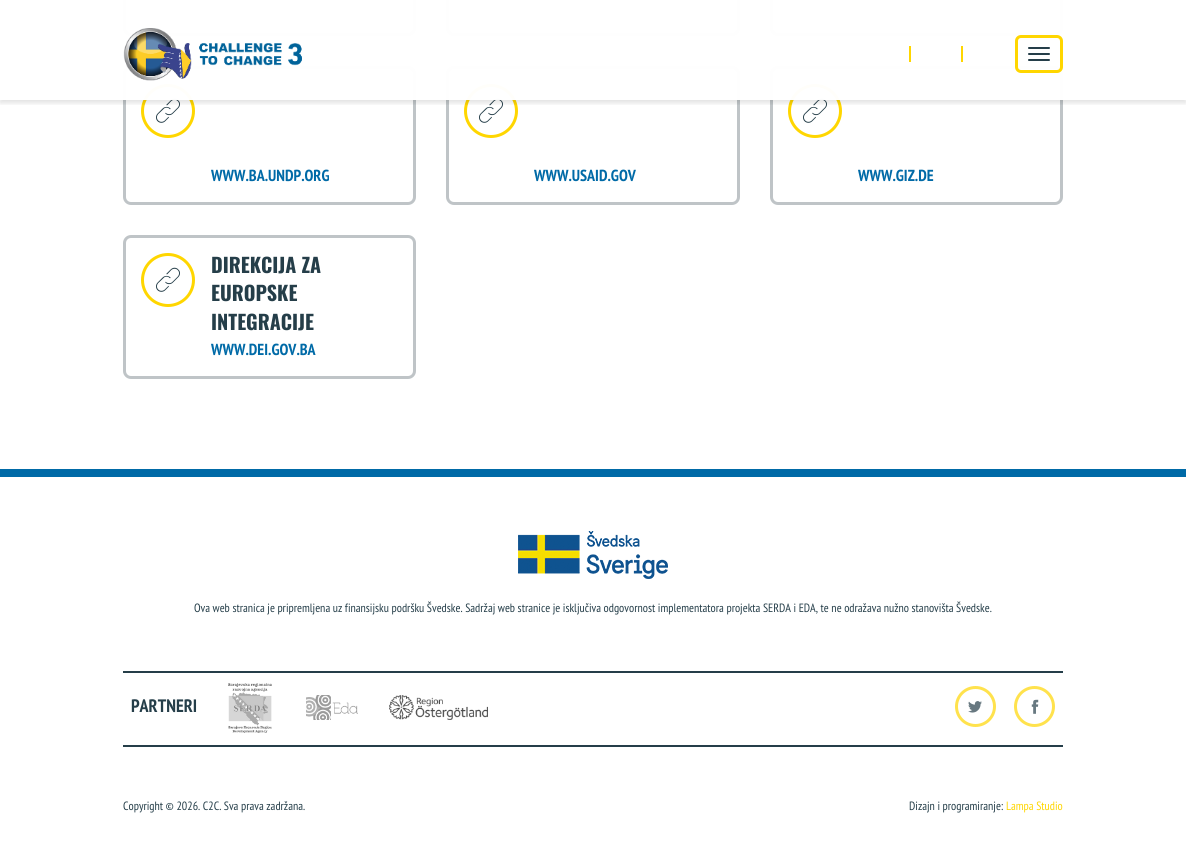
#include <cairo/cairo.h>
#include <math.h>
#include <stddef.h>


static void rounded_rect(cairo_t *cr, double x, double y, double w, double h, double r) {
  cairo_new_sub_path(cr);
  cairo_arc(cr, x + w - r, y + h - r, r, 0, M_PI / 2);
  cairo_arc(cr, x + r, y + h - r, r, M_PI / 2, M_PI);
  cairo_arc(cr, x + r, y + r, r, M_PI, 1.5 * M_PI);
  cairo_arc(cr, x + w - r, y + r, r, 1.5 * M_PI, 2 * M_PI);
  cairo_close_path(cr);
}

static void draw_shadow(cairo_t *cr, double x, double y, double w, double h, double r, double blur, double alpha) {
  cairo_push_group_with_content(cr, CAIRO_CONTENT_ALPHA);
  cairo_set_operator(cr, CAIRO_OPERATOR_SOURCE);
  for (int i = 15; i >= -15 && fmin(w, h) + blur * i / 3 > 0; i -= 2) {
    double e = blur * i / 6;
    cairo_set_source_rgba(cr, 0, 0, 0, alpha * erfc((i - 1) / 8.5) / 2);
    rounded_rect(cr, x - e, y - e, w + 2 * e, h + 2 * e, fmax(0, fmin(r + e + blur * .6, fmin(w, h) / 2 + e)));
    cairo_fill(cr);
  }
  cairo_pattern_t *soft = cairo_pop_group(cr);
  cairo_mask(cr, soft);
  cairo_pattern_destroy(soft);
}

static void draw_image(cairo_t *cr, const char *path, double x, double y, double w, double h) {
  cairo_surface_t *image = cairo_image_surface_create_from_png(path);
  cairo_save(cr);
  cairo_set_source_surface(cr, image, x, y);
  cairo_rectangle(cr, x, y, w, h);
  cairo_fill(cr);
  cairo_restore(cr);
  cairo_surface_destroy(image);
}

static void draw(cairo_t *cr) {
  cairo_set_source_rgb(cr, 1, 1, 1);
  cairo_paint(cr);
  rounded_rect(cr, 124.5, -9.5, 290, 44, 6.5);
  cairo_set_source_rgb(cr, 191 / 255.0, 196 / 255.0, 199 / 255.0);
  cairo_set_line_width(cr, 3);
  cairo_stroke(cr);
  rounded_rect(cr, 447.5, -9.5, 291, 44, 6.5);
  cairo_stroke(cr);
  rounded_rect(cr, 771.5, -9.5, 290, 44, 6.5);
  cairo_stroke(cr);
  rounded_rect(cr, 124.5, 67.5, 290, 136, 6.5);
  cairo_stroke(cr);
  cairo_arc(cr, 168, 111, 25.5, 0, 2 * M_PI);
  cairo_set_source_rgb(cr, 1, 214 / 255.0, 0);
  cairo_stroke(cr);
  draw_image(cr, "images/2.png", 156, 98, 24, 25);
  rounded_rect(cr, 447.5, 67.5, 291, 136, 6.5);
  cairo_set_source_rgb(cr, 191 / 255.0, 196 / 255.0, 199 / 255.0);
  cairo_stroke(cr);
  cairo_arc(cr, 491, 111, 25.5, 0, 2 * M_PI);
  cairo_set_source_rgb(cr, 1, 214 / 255.0, 0);
  cairo_stroke(cr);
  draw_image(cr, "images/2.png", 479, 98, 24, 25);
  rounded_rect(cr, 771.5, 67.5, 290, 136, 6.5);
  cairo_set_source_rgb(cr, 191 / 255.0, 196 / 255.0, 199 / 255.0);
  cairo_stroke(cr);
  cairo_arc(cr, 815, 111, 25.5, 0, 2 * M_PI);
  cairo_set_source_rgb(cr, 1, 214 / 255.0, 0);
  cairo_stroke(cr);
  draw_image(cr, "images/2.png", 803, 98, 24, 25);
  cairo_save(cr);
  cairo_rectangle(cr, 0, 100, 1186, 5);
  cairo_clip(cr);
  cairo_set_source_rgb(cr, 0, 0, 0);
  draw_shadow(cr, 0, 3, 1186, 100, 0, 2.5, 0.12);
  cairo_restore(cr);
  cairo_set_source_rgba(cr, 1, 1, 1, 0.98);
  cairo_rectangle(cr, 123, 0, 940, 100);
  cairo_fill(cr);
  draw_image(cr, "images/1.png", 123, 28, 179, 53);
  rounded_rect(cr, 1016.5, 36.5, 45, 35, 4.5);
  cairo_set_source_rgb(cr, 1, 214 / 255.0, 0);
  cairo_stroke(cr);
  cairo_set_source_rgb(cr, 37 / 255.0, 62 / 255.0, 73 / 255.0);
  rounded_rect(cr, 1028, 47, 22, 2, 1);
  cairo_fill(cr);
  rounded_rect(cr, 1028, 53, 22, 2, 1);
  cairo_fill(cr);
  rounded_rect(cr, 1028, 59, 22, 2, 1);
  cairo_fill(cr);
  cairo_set_source_rgb(cr, 1, 214 / 255.0, 0);
  cairo_rectangle(cr, 909, 46, 2, 16);
  cairo_fill(cr);
  cairo_rectangle(cr, 961, 46, 2, 16);
  cairo_fill(cr);
  rounded_rect(cr, 124.5, 236.5, 290, 141, 6.5);
  cairo_set_source_rgb(cr, 191 / 255.0, 196 / 255.0, 199 / 255.0);
  cairo_stroke(cr);
  cairo_arc(cr, 168, 280, 25.5, 0, 2 * M_PI);
  cairo_set_source_rgb(cr, 1, 214 / 255.0, 0);
  cairo_stroke(cr);
  draw_image(cr, "images/2.png", 156, 267, 24, 25);
  cairo_set_source_rgb(cr, 0, 106 / 255.0, 167 / 255.0);
  cairo_rectangle(cr, 0, 469, 1186, 8);
  cairo_fill(cr);
  draw_image(cr, "images/3.png", 518, 531, 150, 48);
  cairo_set_source_rgb(cr, 37 / 255.0, 62 / 255.0, 73 / 255.0);
  cairo_rectangle(cr, 123, 671, 940, 2);
  cairo_fill(cr);
  cairo_rectangle(cr, 123, 745, 940, 2);
  cairo_fill(cr);
  draw_image(cr, "images/4.png", 228, 683, 44, 50);
  draw_image(cr, "images/5.png", 306, 695, 52, 25);
  draw_image(cr, "images/6.png", 389, 695, 99, 25);
  cairo_arc(cr, 975.5, 706.5, 19, 0, 2 * M_PI);
  cairo_set_source_rgb(cr, 1, 226 / 255.0, 77 / 255.0);
  cairo_stroke(cr);
  draw_image(cr, "images/7.png", 968, 701, 14, 12);
  cairo_arc(cr, 1034.5, 706.5, 19, 0, 2 * M_PI);
  cairo_stroke(cr);
  draw_image(cr, "images/8.png", 1031, 699, 8, 15);
  cairo_select_font_face(cr, "PT Sans Narrow", CAIRO_FONT_SLANT_NORMAL, CAIRO_FONT_WEIGHT_BOLD);
  cairo_set_font_size(cr, 16);
  cairo_set_source_rgb(cr, 0, 106 / 255.0, 167 / 255.0);
  cairo_move_to(cr, 211, 181);
  cairo_show_text(cr, "WWW.BA.UNDP.ORG");
  cairo_move_to(cr, 534, 181);
  cairo_show_text(cr, "WWW.USAID.GOV");
  cairo_move_to(cr, 858, 181);
  cairo_show_text(cr, "WWW.GIZ.DE");
  cairo_select_font_face(cr, "Oswald", CAIRO_FONT_SLANT_NORMAL, CAIRO_FONT_WEIGHT_BOLD);
  cairo_set_font_size(cr, 20);
  cairo_set_source_rgb(cr, 37 / 255.0, 62 / 255.0, 73 / 255.0);
  cairo_move_to(cr, 211, 273);
  cairo_show_text(cr, "DIREKCIJA ZA");
  cairo_move_to(cr, 211, 301);
  cairo_show_text(cr, "EUROPSKE");
  cairo_move_to(cr, 211, 330);
  cairo_show_text(cr, "INTEGRACIJE");
  cairo_select_font_face(cr, "PT Sans Narrow", CAIRO_FONT_SLANT_NORMAL, CAIRO_FONT_WEIGHT_BOLD);
  cairo_set_font_size(cr, 16);
  cairo_set_source_rgb(cr, 0, 106 / 255.0, 167 / 255.0);
  cairo_move_to(cr, 211, 355);
  cairo_show_text(cr, "WWW.DEI.GOV.BA");
  cairo_select_font_face(cr, "PT Sans Narrow", CAIRO_FONT_SLANT_NORMAL, CAIRO_FONT_WEIGHT_NORMAL);
  cairo_set_font_size(cr, 12);
  cairo_set_source_rgb(cr, 37 / 255.0, 62 / 255.0, 73 / 255.0);
  cairo_move_to(cr, 194, 612);
  cairo_show_text(cr, "Ova web stranica je pripremljena uz finansijsku podršku Švedske. Sadržaj web stranice je isključiva odgovornost implementatora projekta SERDA i EDA, te ne odražava nužno stanovišta Švedske.");
  cairo_select_font_face(cr, "PT Sans Narrow", CAIRO_FONT_SLANT_NORMAL, CAIRO_FONT_WEIGHT_BOLD);
  cairo_set_font_size(cr, 18);
  cairo_move_to(cr, 131, 712);
  cairo_show_text(cr, "PARTNERI");
  cairo_select_font_face(cr, "PT Sans Narrow", CAIRO_FONT_SLANT_NORMAL, CAIRO_FONT_WEIGHT_NORMAL);
  cairo_set_font_size(cr, 12);
  cairo_move_to(cr, 123, 810);
  cairo_show_text(cr, "Copyright © 2026. C2C. Sva prava zadržana.");
  cairo_move_to(cr, 909, 810);
  cairo_show_text(cr, "Dizajn i programiranje:");
  cairo_set_source_rgb(cr, 1, 214 / 255.0, 0);
  cairo_move_to(cr, 1006, 810);
  cairo_show_text(cr, "Lampa Studio");
}

int main(void) {
  cairo_surface_t *surface = cairo_image_surface_create(CAIRO_FORMAT_RGB24, 1186, 859);
  cairo_t *cr = cairo_create(surface);
  cairo_font_options_t *options = cairo_font_options_create();
  cairo_font_options_set_hint_metrics(options, CAIRO_HINT_METRICS_OFF);
  cairo_font_options_set_hint_style(options, CAIRO_HINT_STYLE_NONE);
  cairo_set_font_options(cr, options);
  cairo_set_miter_limit(cr, 4);
  draw(cr);
  cairo_surface_write_to_png(surface, "out.png");
  cairo_font_options_destroy(options);
  cairo_destroy(cr);
  cairo_surface_destroy(surface);
  return 0;
}
